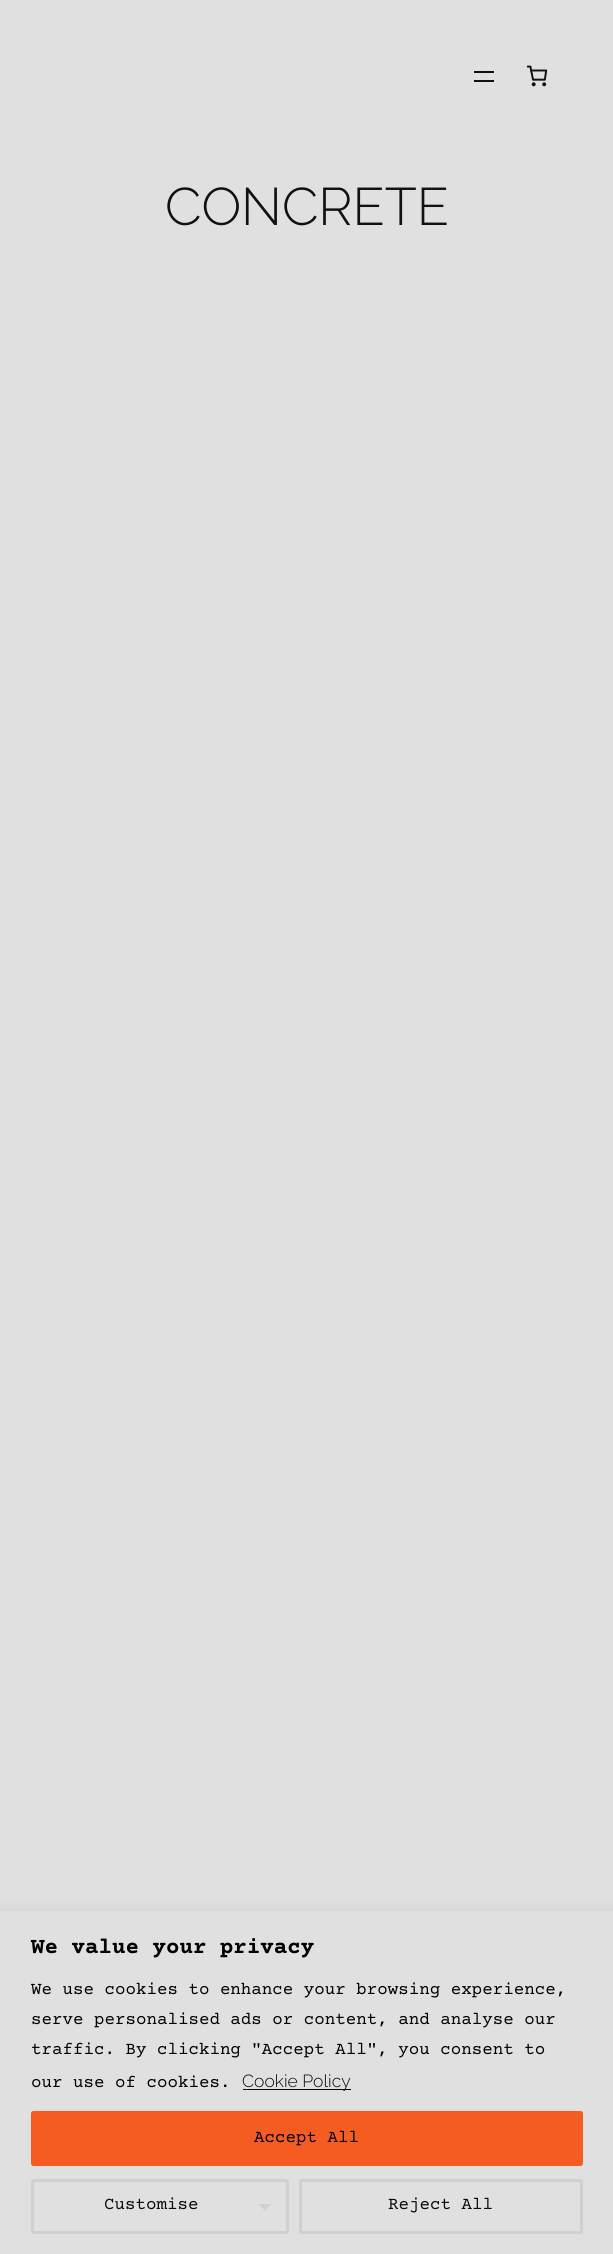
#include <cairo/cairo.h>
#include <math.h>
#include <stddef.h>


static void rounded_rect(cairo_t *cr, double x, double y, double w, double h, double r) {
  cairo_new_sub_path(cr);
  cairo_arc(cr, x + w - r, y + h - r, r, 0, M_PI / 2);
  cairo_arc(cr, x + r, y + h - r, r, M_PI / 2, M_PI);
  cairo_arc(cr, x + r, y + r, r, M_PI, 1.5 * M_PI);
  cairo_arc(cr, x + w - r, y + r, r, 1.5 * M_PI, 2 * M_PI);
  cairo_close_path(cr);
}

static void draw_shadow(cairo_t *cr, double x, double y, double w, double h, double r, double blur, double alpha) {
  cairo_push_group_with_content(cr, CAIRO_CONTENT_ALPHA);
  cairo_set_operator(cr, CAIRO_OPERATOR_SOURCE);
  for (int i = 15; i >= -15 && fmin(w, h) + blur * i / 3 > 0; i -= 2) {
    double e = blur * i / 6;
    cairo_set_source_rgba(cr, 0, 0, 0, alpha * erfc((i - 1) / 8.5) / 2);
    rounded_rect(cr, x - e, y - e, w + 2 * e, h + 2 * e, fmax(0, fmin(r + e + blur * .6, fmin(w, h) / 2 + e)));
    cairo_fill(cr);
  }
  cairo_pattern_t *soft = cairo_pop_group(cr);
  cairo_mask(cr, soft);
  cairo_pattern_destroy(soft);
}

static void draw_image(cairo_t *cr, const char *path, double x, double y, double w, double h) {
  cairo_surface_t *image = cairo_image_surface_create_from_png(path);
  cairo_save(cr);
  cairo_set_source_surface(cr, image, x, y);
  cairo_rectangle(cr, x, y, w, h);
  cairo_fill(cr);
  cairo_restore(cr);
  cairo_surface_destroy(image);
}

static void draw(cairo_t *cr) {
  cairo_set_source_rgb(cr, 224 / 255.0, 224 / 255.0, 224 / 255.0);
  cairo_paint(cr);
  cairo_set_source_rgb(cr, 17 / 255.0, 17 / 255.0, 17 / 255.0);
  cairo_rectangle(cr, 474, 71, 20, 2);
  cairo_fill(cr);
  cairo_rectangle(cr, 474, 80, 20, 2);
  cairo_fill(cr);
  draw_image(cr, "images/1.png", 526, 65, 22, 22);
  cairo_set_source_rgb(cr, 172 / 255.0, 171 / 255.0, 171 / 255.0);
  draw_shadow(cr, 0, 1910, 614, 344, 0, 6, 0.3);
  cairo_set_source_rgb(cr, 224 / 255.0, 224 / 255.0, 224 / 255.0);
  cairo_rectangle(cr, 0, 1911, 613, 343);
  cairo_fill(cr);
  cairo_set_source_rgb(cr, 6 / 255.0, 6 / 255.0, 6 / 255.0);
  cairo_rectangle(cr, 243, 2089, 108, 1);
  cairo_fill(cr);
  cairo_set_source_rgb(cr, 245 / 255.0, 92 / 255.0, 34 / 255.0);
  rounded_rect(cr, 32.5, 2112.5, 549, 52, 1);
  cairo_fill_preserve(cr);
  cairo_set_line_width(cr, 3);
  cairo_stroke(cr);
  rounded_rect(cr, 32.5, 2180.5, 255, 52, 1);
  cairo_set_source_rgb(cr, 208 / 255.0, 208 / 255.0, 208 / 255.0);
  cairo_stroke(cr);
  cairo_new_path(cr);
  cairo_move_to(cr, 259, 2204);
  cairo_line_to(cr, 271, 2204);
  cairo_line_to(cr, 265, 2211);
  cairo_close_path(cr);
  cairo_fill(cr);
  rounded_rect(cr, 300.5, 2180.5, 281, 52, 1);
  cairo_stroke(cr);
  cairo_select_font_face(cr, "Raleway Light", CAIRO_FONT_SLANT_NORMAL, CAIRO_FONT_WEIGHT_NORMAL);
  cairo_set_font_size(cr, 52.75);
  cairo_set_source_rgb(cr, 17 / 255.0, 17 / 255.0, 17 / 255.0);
  cairo_move_to(cr, 165, 225);
  cairo_show_text(cr, "CONCRETE");
  cairo_select_font_face(cr, "Courier Prime", CAIRO_FONT_SLANT_NORMAL, CAIRO_FONT_WEIGHT_BOLD);
  cairo_set_font_size(cr, 22.5);
  cairo_set_source_rgb(cr, 0, 0, 0);
  cairo_move_to(cr, 31, 1953);
  cairo_show_text(cr, "We value your privacy");
  cairo_select_font_face(cr, "Courier Prime", CAIRO_FONT_SLANT_NORMAL, CAIRO_FONT_WEIGHT_NORMAL);
  cairo_set_font_size(cr, 17.5);
  cairo_move_to(cr, 31, 1994);
  cairo_show_text(cr, "We use cookies to enhance your browsing experience,");
  cairo_move_to(cr, 31, 2024);
  cairo_show_text(cr, "serve personalised ads or content, and analyse our");
  cairo_move_to(cr, 31, 2054);
  cairo_show_text(cr, "traffic. By clicking \"Accept All\", you consent to");
  cairo_move_to(cr, 31, 2087);
  cairo_show_text(cr, "our use of cookies.");
  cairo_select_font_face(cr, "Raleway Light", CAIRO_FONT_SLANT_NORMAL, CAIRO_FONT_WEIGHT_NORMAL);
  cairo_set_source_rgb(cr, 10 / 255.0, 10 / 255.0, 10 / 255.0);
  cairo_move_to(cr, 242, 2087);
  cairo_show_text(cr, "Cookie Policy");
  cairo_select_font_face(cr, "Courier Prime", CAIRO_FONT_SLANT_NORMAL, CAIRO_FONT_WEIGHT_NORMAL);
  cairo_set_source_rgb(cr, 0, 0, 0);
  cairo_move_to(cr, 254, 2142);
  cairo_show_text(cr, "Accept All");
  cairo_set_source_rgb(cr, 10 / 255.0, 10 / 255.0, 10 / 255.0);
  cairo_move_to(cr, 104, 2209);
  cairo_show_text(cr, "Customise");
  cairo_move_to(cr, 388, 2209);
  cairo_show_text(cr, "Reject All");
}

int main(void) {
  cairo_surface_t *surface = cairo_image_surface_create(CAIRO_FORMAT_RGB24, 613, 2254);
  cairo_t *cr = cairo_create(surface);
  cairo_font_options_t *options = cairo_font_options_create();
  cairo_font_options_set_hint_metrics(options, CAIRO_HINT_METRICS_OFF);
  cairo_font_options_set_hint_style(options, CAIRO_HINT_STYLE_NONE);
  cairo_set_font_options(cr, options);
  cairo_set_miter_limit(cr, 4);
  draw(cr);
  cairo_surface_write_to_png(surface, "out.png");
  cairo_font_options_destroy(options);
  cairo_destroy(cr);
  cairo_surface_destroy(surface);
  return 0;
}
